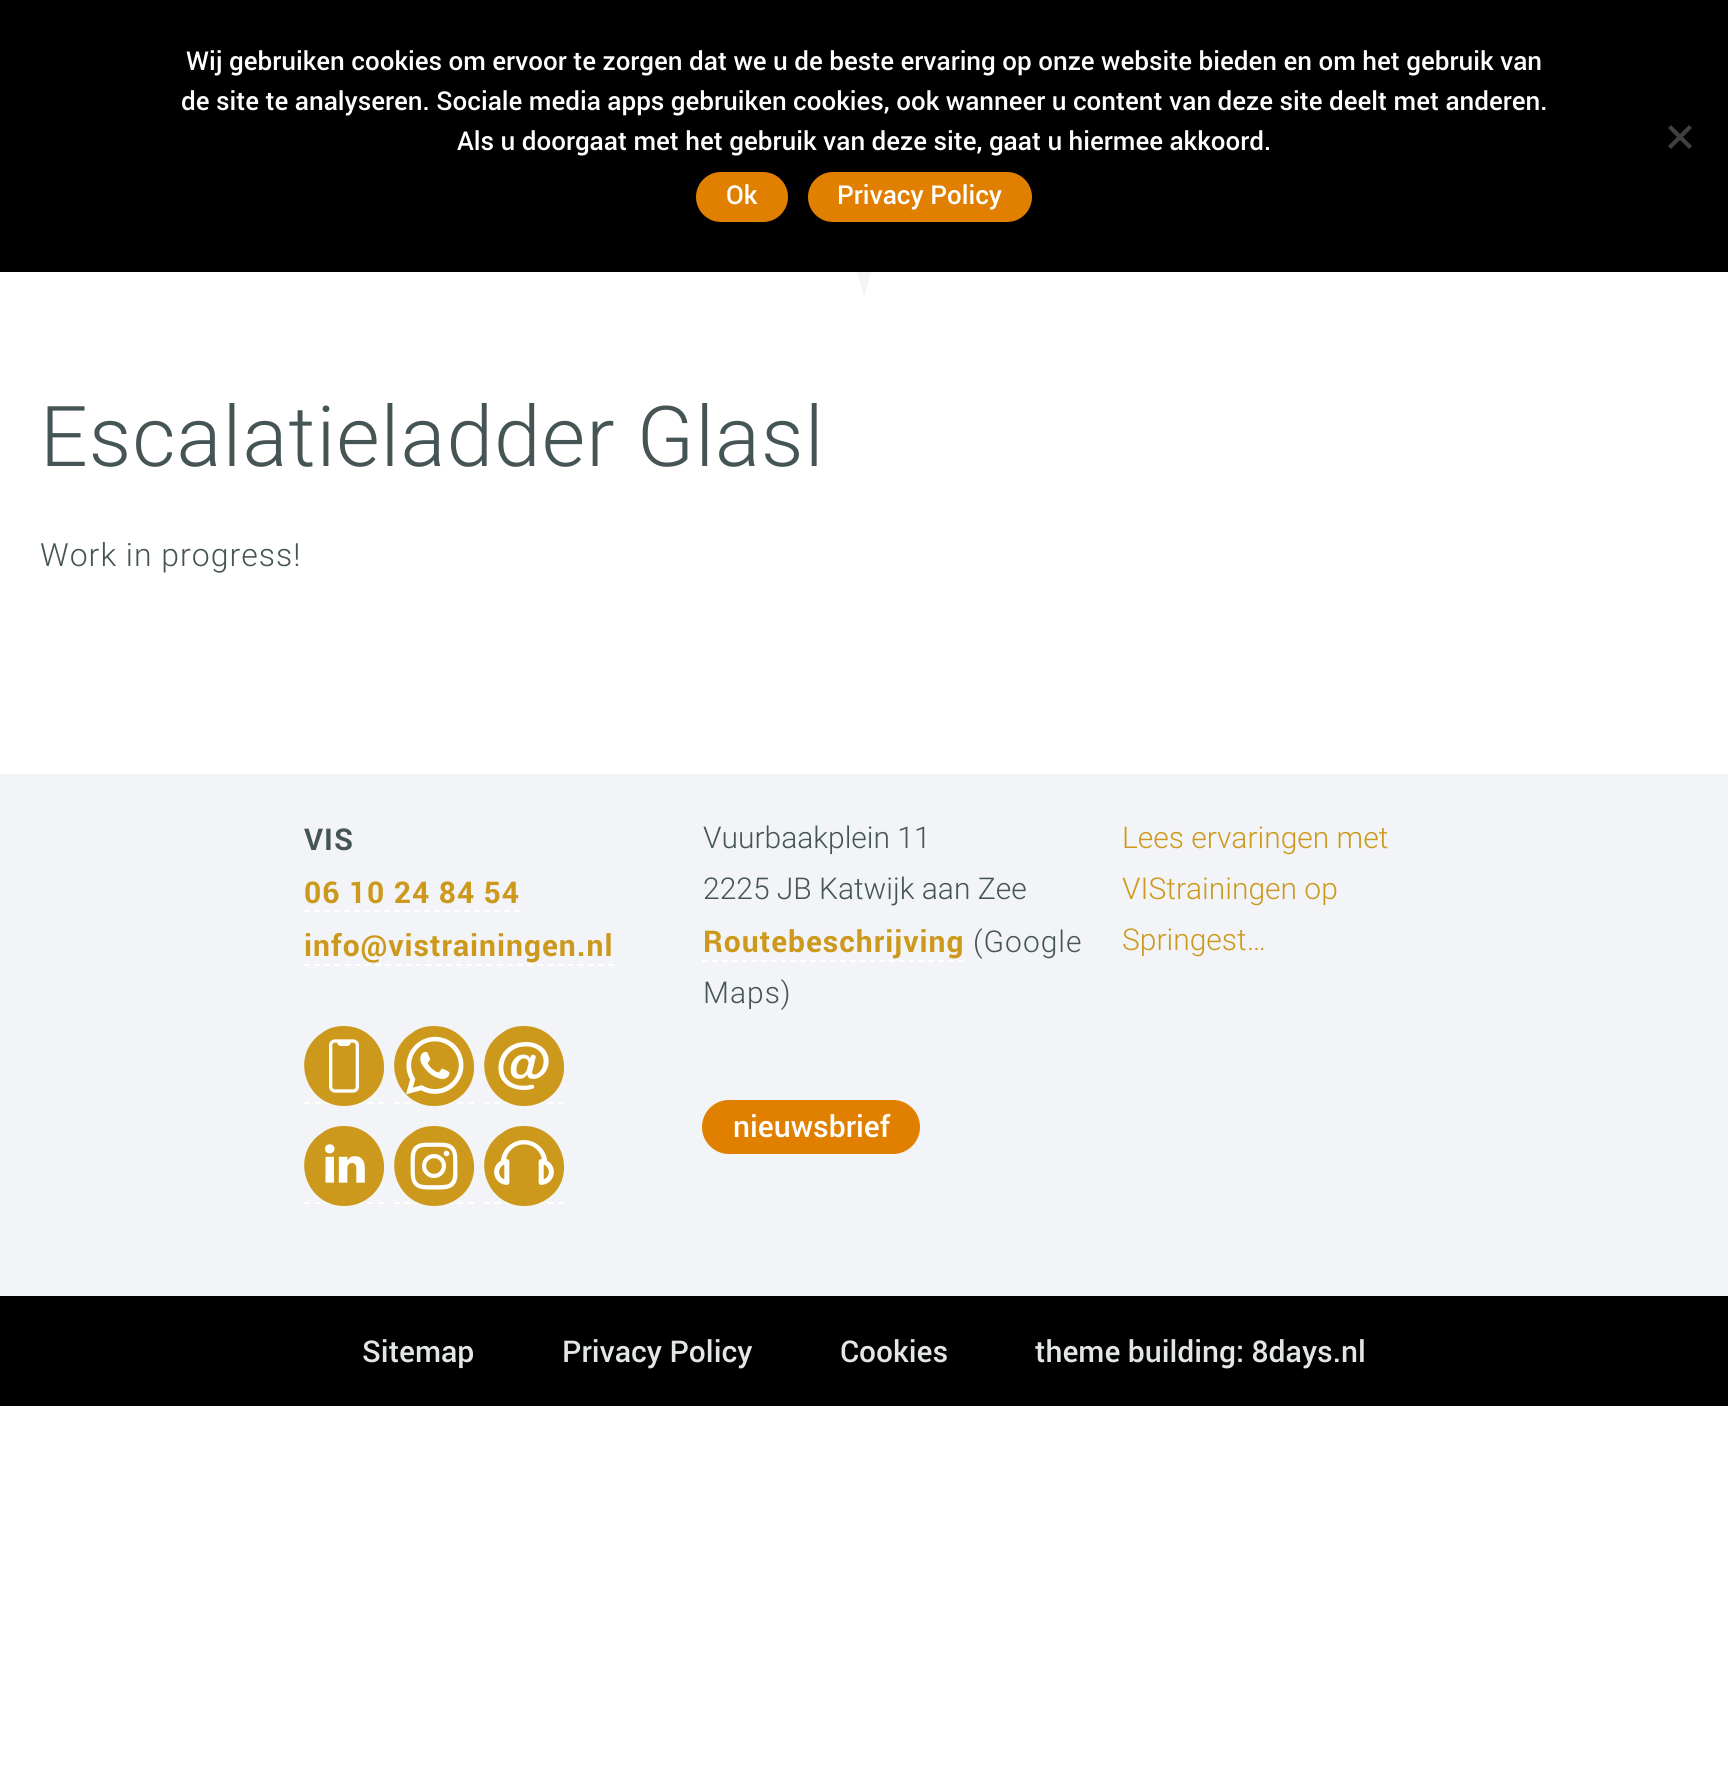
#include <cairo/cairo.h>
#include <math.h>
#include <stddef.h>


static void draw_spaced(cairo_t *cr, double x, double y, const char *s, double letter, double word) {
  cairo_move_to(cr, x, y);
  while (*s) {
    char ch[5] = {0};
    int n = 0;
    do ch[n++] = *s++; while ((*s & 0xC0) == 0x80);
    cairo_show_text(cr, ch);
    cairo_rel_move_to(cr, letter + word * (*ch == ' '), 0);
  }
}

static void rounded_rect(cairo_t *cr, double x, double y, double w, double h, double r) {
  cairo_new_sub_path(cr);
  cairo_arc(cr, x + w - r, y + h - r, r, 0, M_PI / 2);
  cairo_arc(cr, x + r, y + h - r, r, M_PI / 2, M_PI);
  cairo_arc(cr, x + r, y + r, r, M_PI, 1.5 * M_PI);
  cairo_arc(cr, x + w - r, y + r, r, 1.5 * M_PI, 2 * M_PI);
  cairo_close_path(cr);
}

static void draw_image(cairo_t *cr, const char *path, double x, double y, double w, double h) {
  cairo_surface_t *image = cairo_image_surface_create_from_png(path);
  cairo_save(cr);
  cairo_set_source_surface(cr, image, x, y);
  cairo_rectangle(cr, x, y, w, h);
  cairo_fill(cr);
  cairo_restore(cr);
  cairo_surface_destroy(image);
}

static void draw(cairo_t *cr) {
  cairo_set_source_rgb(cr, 1, 1, 1);
  cairo_paint(cr);
  cairo_set_source_rgb(cr, 242 / 255.0, 244 / 255.0, 247 / 255.0);
  cairo_new_path(cr);
  cairo_move_to(cr, 87, -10);
  cairo_curve_to(cr, 97, 96, 128, 122, 180, 122);
  cairo_line_to(cr, 697, 137);
  cairo_curve_to(cr, 804, 137, 849, 231, 864, 298);
  cairo_curve_to(cr, 881, 232, 913, 137, 1019, 137);
  cairo_line_to(cr, 1523, 122);
  cairo_curve_to(cr, 1587, 122, 1626, 88, 1641, -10);
  cairo_close_path(cr);
  cairo_fill(cr);
  cairo_set_source_rgb(cr, 0, 0, 0);
  cairo_rectangle(cr, 0, 0, 1728, 272);
  cairo_fill(cr);
  cairo_set_source_rgb(cr, 64 / 255.0, 64 / 255.0, 64 / 255.0);
  cairo_new_path(cr);
  cairo_move_to(cr, 1689, 125);
  cairo_line_to(cr, 1692, 128);
  cairo_line_to(cr, 1671, 149);
  cairo_line_to(cr, 1668, 146);
  cairo_close_path(cr);
  cairo_fill(cr);
  cairo_new_path(cr);
  cairo_move_to(cr, 1668, 128);
  cairo_line_to(cr, 1671, 125);
  cairo_line_to(cr, 1692, 146);
  cairo_line_to(cr, 1689, 149);
  cairo_close_path(cr);
  cairo_fill(cr);
  cairo_set_source_rgb(cr, 225 / 255.0, 128 / 255.0, 0);
  rounded_rect(cr, 696, 172, 92, 50, 25);
  cairo_fill(cr);
  rounded_rect(cr, 808, 172, 224, 50, 25);
  cairo_fill(cr);
  cairo_set_source_rgb(cr, 242 / 255.0, 244 / 255.0, 247 / 255.0);
  cairo_rectangle(cr, 0, 774, 1728, 522);
  cairo_fill(cr);
  cairo_new_path(cr);
  cairo_move_to(cr, 304, 911);
  cairo_line_to(cr, 520, 911);
  cairo_set_source_rgb(cr, 1, 1, 1);
  cairo_set_dash(cr, (double[]){6, 4}, 2, 0);
  cairo_stroke(cr);
  cairo_new_path(cr);
  cairo_move_to(cr, 304, 965);
  cairo_line_to(cr, 614, 965);
  cairo_set_dash(cr, (double[]){6, 4.14}, 2, 0);
  cairo_stroke(cr);
  cairo_new_path(cr);
  cairo_move_to(cr, 304, 1103);
  cairo_line_to(cr, 384, 1103);
  cairo_set_dash(cr, (double[]){6, 4.58}, 2, 0);
  cairo_stroke(cr);
  cairo_set_source_rgb(cr, 204 / 255.0, 153 / 255.0, 28 / 255.0);
  cairo_new_path(cr);
  cairo_move_to(cr, 344, 1106);
  cairo_curve_to(cr, 352, 1106, 360, 1104, 367, 1099);
  cairo_curve_to(cr, 399, 1078, 383, 1026, 344, 1026);
  cairo_curve_to(cr, 336, 1026, 328, 1028, 322, 1033);
  cairo_curve_to(cr, 289, 1054, 305, 1106, 344, 1106);
  cairo_close_path(cr);
  cairo_fill(cr);
  draw_image(cr, "images/1.png", 329, 1039, 31, 54);
  cairo_new_path(cr);
  cairo_move_to(cr, 394, 1103);
  cairo_line_to(cr, 474, 1103);
  cairo_set_source_rgb(cr, 1, 1, 1);
  cairo_stroke(cr);
  cairo_set_source_rgb(cr, 204 / 255.0, 153 / 255.0, 28 / 255.0);
  cairo_new_path(cr);
  cairo_move_to(cr, 434, 1106);
  cairo_curve_to(cr, 442, 1106, 450, 1104, 457, 1099);
  cairo_curve_to(cr, 489, 1078, 473, 1026, 434, 1026);
  cairo_curve_to(cr, 426, 1026, 418, 1028, 412, 1033);
  cairo_curve_to(cr, 379, 1054, 395, 1106, 434, 1106);
  cairo_close_path(cr);
  cairo_fill(cr);
  draw_image(cr, "images/2.png", 406, 1036, 58, 59);
  cairo_new_path(cr);
  cairo_move_to(cr, 484, 1103);
  cairo_line_to(cr, 564, 1103);
  cairo_set_source_rgb(cr, 1, 1, 1);
  cairo_stroke(cr);
  cairo_set_source_rgb(cr, 204 / 255.0, 153 / 255.0, 28 / 255.0);
  cairo_new_path(cr);
  cairo_move_to(cr, 524, 1106);
  cairo_curve_to(cr, 532, 1106, 540, 1104, 547, 1099);
  cairo_curve_to(cr, 579, 1078, 563, 1026, 524, 1026);
  cairo_curve_to(cr, 516, 1026, 508, 1028, 502, 1033);
  cairo_curve_to(cr, 469, 1054, 485, 1106, 524, 1106);
  cairo_close_path(cr);
  cairo_fill(cr);
  draw_image(cr, "images/3.png", 498, 1042, 51, 48);
  cairo_new_path(cr);
  cairo_move_to(cr, 304, 1203);
  cairo_line_to(cr, 384, 1203);
  cairo_set_source_rgb(cr, 1, 1, 1);
  cairo_stroke(cr);
  cairo_set_source_rgb(cr, 204 / 255.0, 153 / 255.0, 28 / 255.0);
  cairo_new_path(cr);
  cairo_move_to(cr, 344, 1206);
  cairo_curve_to(cr, 352, 1206, 360, 1204, 367, 1199);
  cairo_curve_to(cr, 399, 1178, 383, 1126, 344, 1126);
  cairo_curve_to(cr, 336, 1126, 328, 1128, 322, 1133);
  cairo_curve_to(cr, 289, 1154, 305, 1206, 344, 1206);
  cairo_close_path(cr);
  cairo_fill(cr);
  draw_image(cr, "images/4.png", 325, 1144, 40, 39);
  cairo_new_path(cr);
  cairo_move_to(cr, 394, 1203);
  cairo_line_to(cr, 474, 1203);
  cairo_set_source_rgb(cr, 1, 1, 1);
  cairo_stroke(cr);
  cairo_set_source_rgb(cr, 204 / 255.0, 153 / 255.0, 28 / 255.0);
  cairo_new_path(cr);
  cairo_move_to(cr, 434, 1206);
  cairo_curve_to(cr, 442, 1206, 450, 1204, 457, 1199);
  cairo_curve_to(cr, 489, 1178, 473, 1126, 434, 1126);
  cairo_curve_to(cr, 426, 1126, 418, 1128, 412, 1133);
  cairo_curve_to(cr, 379, 1154, 395, 1206, 434, 1206);
  cairo_close_path(cr);
  cairo_fill(cr);
  draw_image(cr, "images/5.png", 410, 1142, 48, 48);
  cairo_new_path(cr);
  cairo_move_to(cr, 484, 1203);
  cairo_line_to(cr, 564, 1203);
  cairo_set_source_rgb(cr, 1, 1, 1);
  cairo_stroke(cr);
  cairo_set_source_rgb(cr, 204 / 255.0, 153 / 255.0, 28 / 255.0);
  cairo_new_path(cr);
  cairo_move_to(cr, 524, 1206);
  cairo_curve_to(cr, 532, 1206, 540, 1204, 547, 1199);
  cairo_curve_to(cr, 579, 1178, 563, 1126, 524, 1126);
  cairo_curve_to(cr, 516, 1126, 508, 1128, 502, 1133);
  cairo_curve_to(cr, 469, 1154, 485, 1206, 524, 1206);
  cairo_close_path(cr);
  cairo_fill(cr);
  draw_image(cr, "images/6.png", 494, 1140, 60, 45);
  cairo_new_path(cr);
  cairo_move_to(cr, 702, 961);
  cairo_line_to(cr, 964, 961);
  cairo_set_source_rgb(cr, 1, 1, 1);
  cairo_set_dash(cr, (double[]){6, 3.84}, 2, 0);
  cairo_stroke(cr);
  cairo_set_source_rgb(cr, 225 / 255.0, 128 / 255.0, 0);
  rounded_rect(cr, 702, 1100, 218, 54, 27);
  cairo_fill(cr);
  cairo_set_source_rgb(cr, 0, 0, 0);
  cairo_rectangle(cr, 0, 1296, 1728, 110);
  cairo_fill(cr);
  cairo_select_font_face(cr, "Roboto Medium", CAIRO_FONT_SLANT_NORMAL, CAIRO_FONT_WEIGHT_NORMAL);
  cairo_set_font_size(cr, 26);
  cairo_set_source_rgb(cr, 1, 1, 1);
  cairo_move_to(cr, 186, 70);
  cairo_show_text(cr, "Wij gebruiken cookies om ervoor te zorgen dat we u de beste ervaring op onze website bieden en om het gebruik van");
  cairo_move_to(cr, 181, 110);
  cairo_show_text(cr, "de site te analyseren. Sociale media apps gebruiken cookies, ook wanneer u content van deze site deelt met anderen.");
  cairo_move_to(cr, 457, 150);
  cairo_show_text(cr, "Als u doorgaat met het gebruik van deze site, gaat u hiermee akkoord.");
  cairo_move_to(cr, 726, 204);
  cairo_show_text(cr, "Ok");
  cairo_move_to(cr, 837, 204);
  cairo_show_text(cr, "Privacy Policy");
  cairo_select_font_face(cr, "Roboto Light", CAIRO_FONT_SLANT_NORMAL, CAIRO_FONT_WEIGHT_NORMAL);
  cairo_set_font_size(cr, 84);
  cairo_set_source_rgb(cr, 69 / 255.0, 84 / 255.0, 84 / 255.0);
  draw_spaced(cr, 40, 466, "Escalatieladder Glasl", 1, 0);
  cairo_set_font_size(cr, 32);
  draw_spaced(cr, 40, 566, "Work in progress!", 1, 0);
  cairo_select_font_face(cr, "Roboto", CAIRO_FONT_SLANT_NORMAL, CAIRO_FONT_WEIGHT_BOLD);
  cairo_set_font_size(cr, 30);
  draw_spaced(cr, 304, 850, "VIS", 1, 0);
  cairo_set_source_rgb(cr, 204 / 255.0, 153 / 255.0, 28 / 255.0);
  draw_spaced(cr, 304, 903, "06 10 24 84 54", 1, 0);
  draw_spaced(cr, 304, 956, "info@vistrainingen.nl", 1, 0);
  cairo_select_font_face(cr, "Roboto Light", CAIRO_FONT_SLANT_NORMAL, CAIRO_FONT_WEIGHT_NORMAL);
  cairo_set_source_rgb(cr, 69 / 255.0, 84 / 255.0, 84 / 255.0);
  cairo_move_to(cr, 703, 848);
  cairo_show_text(cr, "Vuurbaakplein 11");
  cairo_move_to(cr, 703, 899);
  cairo_show_text(cr, "2225 JB Katwijk aan Zee");
  cairo_select_font_face(cr, "Roboto", CAIRO_FONT_SLANT_NORMAL, CAIRO_FONT_WEIGHT_BOLD);
  cairo_set_source_rgb(cr, 204 / 255.0, 153 / 255.0, 28 / 255.0);
  draw_spaced(cr, 703, 952, "Routebeschrijving", 1, 0);
  cairo_select_font_face(cr, "Roboto Light", CAIRO_FONT_SLANT_NORMAL, CAIRO_FONT_WEIGHT_NORMAL);
  cairo_set_source_rgb(cr, 69 / 255.0, 84 / 255.0, 84 / 255.0);
  draw_spaced(cr, 973, 952, "(Google", 1, 0);
  draw_spaced(cr, 703, 1003, "Maps)", 1, 0);
  cairo_select_font_face(cr, "Roboto Medium", CAIRO_FONT_SLANT_NORMAL, CAIRO_FONT_WEIGHT_NORMAL);
  cairo_set_source_rgb(cr, 1, 1, 1);
  cairo_move_to(cr, 733, 1137);
  cairo_show_text(cr, "nieuwsbrief");
  cairo_select_font_face(cr, "Roboto Light", CAIRO_FONT_SLANT_NORMAL, CAIRO_FONT_WEIGHT_NORMAL);
  cairo_set_source_rgb(cr, 204 / 255.0, 153 / 255.0, 28 / 255.0);
  cairo_move_to(cr, 1122, 848);
  cairo_show_text(cr, "Lees ervaringen met");
  cairo_move_to(cr, 1122, 899);
  cairo_show_text(cr, "VIStrainingen op");
  cairo_move_to(cr, 1122, 950);
  cairo_show_text(cr, "Springest…");
  cairo_select_font_face(cr, "Roboto Medium", CAIRO_FONT_SLANT_NORMAL, CAIRO_FONT_WEIGHT_NORMAL);
  cairo_set_source_rgb(cr, 227 / 255.0, 230 / 255.0, 230 / 255.0);
  cairo_move_to(cr, 362, 1362);
  cairo_show_text(cr, "Sitemap");
  cairo_move_to(cr, 562, 1362);
  cairo_show_text(cr, "Privacy Policy");
  cairo_move_to(cr, 840, 1362);
  cairo_show_text(cr, "Cookies");
  cairo_move_to(cr, 1035, 1362);
  cairo_show_text(cr, "theme building: 8days.nl");
}

int main(void) {
  cairo_surface_t *surface = cairo_image_surface_create(CAIRO_FORMAT_RGB24, 1728, 1789);
  cairo_t *cr = cairo_create(surface);
  cairo_font_options_t *options = cairo_font_options_create();
  cairo_font_options_set_hint_metrics(options, CAIRO_HINT_METRICS_OFF);
  cairo_font_options_set_hint_style(options, CAIRO_HINT_STYLE_NONE);
  cairo_set_font_options(cr, options);
  cairo_set_miter_limit(cr, 4);
  draw(cr);
  cairo_surface_write_to_png(surface, "out.png");
  cairo_font_options_destroy(options);
  cairo_destroy(cr);
  cairo_surface_destroy(surface);
  return 0;
}
